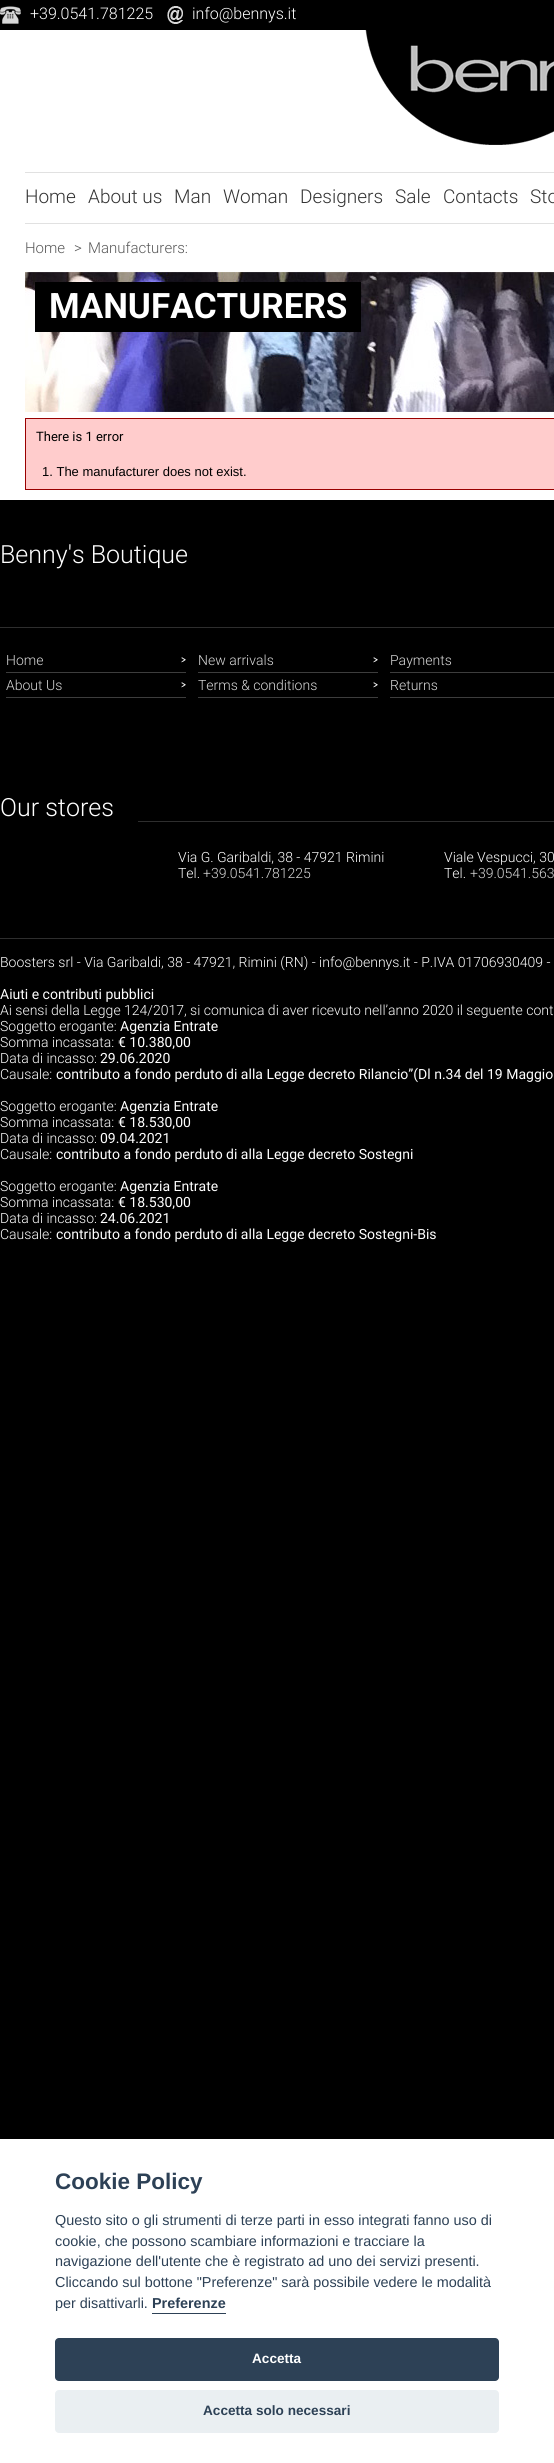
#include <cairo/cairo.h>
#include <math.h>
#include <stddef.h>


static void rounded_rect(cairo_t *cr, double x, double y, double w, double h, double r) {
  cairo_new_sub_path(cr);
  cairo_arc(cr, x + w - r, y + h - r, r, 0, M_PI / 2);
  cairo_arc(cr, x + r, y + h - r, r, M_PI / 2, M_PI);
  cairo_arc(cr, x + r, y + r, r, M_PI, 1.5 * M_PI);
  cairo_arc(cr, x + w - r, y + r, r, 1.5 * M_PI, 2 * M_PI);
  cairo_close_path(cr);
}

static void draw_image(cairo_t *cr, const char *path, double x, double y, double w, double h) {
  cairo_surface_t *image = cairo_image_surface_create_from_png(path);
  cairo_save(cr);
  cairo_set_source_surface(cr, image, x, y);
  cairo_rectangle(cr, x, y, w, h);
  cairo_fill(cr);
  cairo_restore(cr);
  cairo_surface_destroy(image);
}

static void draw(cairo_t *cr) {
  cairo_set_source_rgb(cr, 0, 0, 0);
  cairo_paint(cr);
  cairo_set_source_rgb(cr, 1, 1, 1);
  cairo_rectangle(cr, 0, 30, 554, 470);
  cairo_fill(cr);
  draw_image(cr, "images/1.png", 0, 6, 21, 18);
  draw_image(cr, "images/2.png", 167, 6, 16, 18);
  draw_image(cr, "images/3.png", 365, 30, 189, 115);
  cairo_set_source_rgb(cr, 225 / 255.0, 225 / 255.0, 225 / 255.0);
  cairo_rectangle(cr, 25, 172, 529, 1);
  cairo_fill(cr);
  cairo_rectangle(cr, 25, 223, 529, 1);
  cairo_fill(cr);
  draw_image(cr, "images/4.png", 25, 272, 529, 140);
  cairo_set_source_rgb(cr, 0, 0, 0);
  cairo_rectangle(cr, 35, 282, 326, 50);
  cairo_fill(cr);
  cairo_set_source_rgb(cr, 1, 204 / 255.0, 204 / 255.0);
  cairo_rectangle(cr, 25.5, 418.5, 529, 71);
  cairo_fill_preserve(cr);
  cairo_set_source_rgb(cr, 153 / 255.0, 0, 0);
  cairo_set_line_width(cr, 1);
  cairo_stroke(cr);
  cairo_set_source_rgb(cr, 46 / 255.0, 46 / 255.0, 46 / 255.0);
  cairo_rectangle(cr, 0, 627, 554, 1);
  cairo_fill(cr);
  draw_image(cr, "images/5.png", 181, 657, 5, 6);
  cairo_set_source_rgb(cr, 61 / 255.0, 61 / 255.0, 61 / 255.0);
  cairo_rectangle(cr, 6, 672, 180, 1);
  cairo_fill(cr);
  draw_image(cr, "images/5.png", 373, 657, 5, 6);
  cairo_rectangle(cr, 198, 672, 180, 1);
  cairo_fill(cr);
  cairo_rectangle(cr, 390, 672, 164, 1);
  cairo_fill(cr);
  draw_image(cr, "images/5.png", 181, 682, 5, 6);
  cairo_rectangle(cr, 6, 697, 180, 1);
  cairo_fill(cr);
  draw_image(cr, "images/5.png", 373, 682, 5, 6);
  cairo_rectangle(cr, 198, 697, 180, 1);
  cairo_fill(cr);
  cairo_rectangle(cr, 390, 697, 164, 1);
  cairo_fill(cr);
  cairo_set_source_rgb(cr, 46 / 255.0, 46 / 255.0, 46 / 255.0);
  cairo_rectangle(cr, 138, 821, 416, 1);
  cairo_fill(cr);
  cairo_rectangle(cr, 0, 938, 554, 1);
  cairo_fill(cr);
  cairo_set_source_rgb(cr, 1, 1, 1);
  cairo_rectangle(cr, 0, 2139, 554, 324);
  cairo_fill(cr);
  cairo_set_source_rgb(cr, 45 / 255.0, 65 / 255.0, 86 / 255.0);
  cairo_rectangle(cr, 152, 2313, 74, 1);
  cairo_fill(cr);
  rounded_rect(cr, 55, 2338, 444, 43, 4);
  cairo_fill(cr);
  cairo_set_source_rgb(cr, 234 / 255.0, 239 / 255.0, 242 / 255.0);
  rounded_rect(cr, 55, 2390, 444, 43, 4);
  cairo_fill(cr);
  cairo_select_font_face(cr, "Roboto Light", CAIRO_FONT_SLANT_NORMAL, CAIRO_FONT_WEIGHT_NORMAL);
  cairo_set_font_size(cr, 16);
  cairo_set_source_rgb(cr, 1, 1, 1);
  cairo_move_to(cr, 30, 19);
  cairo_show_text(cr, "+39.0541.781225");
  cairo_move_to(cr, 192, 19);
  cairo_show_text(cr, "info@bennys.it");
  cairo_set_font_size(cr, 19);
  cairo_set_source_rgb(cr, 51 / 255.0, 51 / 255.0, 51 / 255.0);
  cairo_move_to(cr, 25, 203);
  cairo_show_text(cr, "Home");
  cairo_move_to(cr, 88, 203);
  cairo_show_text(cr, "About us");
  cairo_move_to(cr, 174, 203);
  cairo_show_text(cr, "Man");
  cairo_move_to(cr, 223, 203);
  cairo_show_text(cr, "Woman");
  cairo_move_to(cr, 300, 203);
  cairo_show_text(cr, "Designers");
  cairo_move_to(cr, 395, 203);
  cairo_show_text(cr, "Sale");
  cairo_move_to(cr, 443, 203);
  cairo_show_text(cr, "Contacts");
  cairo_move_to(cr, 530, 203);
  cairo_show_text(cr, "Sto");
  cairo_set_font_size(cr, 15);
  cairo_set_source_rgb(cr, 89 / 255.0, 89 / 255.0, 89 / 255.0);
  cairo_move_to(cr, 25, 253);
  cairo_show_text(cr, "Home");
  cairo_move_to(cr, 74, 253);
  cairo_show_text(cr, ">");
  cairo_move_to(cr, 88, 253);
  cairo_show_text(cr, "Manufacturers:");
  cairo_select_font_face(cr, "Roboto", CAIRO_FONT_SLANT_NORMAL, CAIRO_FONT_WEIGHT_BOLD);
  cairo_set_font_size(cr, 35);
  cairo_set_source_rgb(cr, 1, 1, 1);
  cairo_move_to(cr, 49, 318);
  cairo_show_text(cr, "MANUFACTURERS");
  cairo_select_font_face(cr, "Roboto", CAIRO_FONT_SLANT_NORMAL, CAIRO_FONT_WEIGHT_NORMAL);
  cairo_set_font_size(cr, 13);
  cairo_set_source_rgb(cr, 0, 0, 0);
  cairo_move_to(cr, 36, 441);
  cairo_show_text(cr, "There is 1 error");
  cairo_select_font_face(cr, "Liberation Sans", CAIRO_FONT_SLANT_NORMAL, CAIRO_FONT_WEIGHT_NORMAL);
  cairo_move_to(cr, 42, 476);
  cairo_show_text(cr, "1. The manufacturer does not exist.");
  cairo_select_font_face(cr, "Roboto Light", CAIRO_FONT_SLANT_NORMAL, CAIRO_FONT_WEIGHT_NORMAL);
  cairo_set_font_size(cr, 25);
  cairo_set_source_rgb(cr, 1, 1, 1);
  cairo_move_to(cr, 0, 563);
  cairo_show_text(cr, "Benny's Boutique");
  cairo_set_font_size(cr, 14);
  cairo_set_source_rgb(cr, 216 / 255.0, 216 / 255.0, 216 / 255.0);
  cairo_move_to(cr, 6, 665);
  cairo_show_text(cr, "Home");
  cairo_move_to(cr, 198, 665);
  cairo_show_text(cr, "New arrivals");
  cairo_move_to(cr, 390, 665);
  cairo_show_text(cr, "Payments");
  cairo_move_to(cr, 6, 690);
  cairo_show_text(cr, "About Us");
  cairo_move_to(cr, 198, 690);
  cairo_show_text(cr, "Terms & conditions");
  cairo_move_to(cr, 390, 690);
  cairo_show_text(cr, "Returns");
  cairo_set_font_size(cr, 25);
  cairo_set_source_rgb(cr, 1, 1, 1);
  cairo_move_to(cr, 0, 816);
  cairo_show_text(cr, "Our stores");
  cairo_set_font_size(cr, 14);
  cairo_move_to(cr, 178, 862);
  cairo_show_text(cr, "Via G. Garibaldi, 38 - 47921 Rimini");
  cairo_move_to(cr, 178, 878);
  cairo_show_text(cr, "Tel.");
  cairo_set_source_rgb(cr, 216 / 255.0, 216 / 255.0, 216 / 255.0);
  cairo_move_to(cr, 203, 878);
  cairo_show_text(cr, "+39.0541.781225");
  cairo_set_source_rgb(cr, 1, 1, 1);
  cairo_move_to(cr, 444, 862);
  cairo_show_text(cr, "Viale Vespucci, 30");
  cairo_move_to(cr, 444, 878);
  cairo_show_text(cr, "Tel.");
  cairo_set_source_rgb(cr, 216 / 255.0, 216 / 255.0, 216 / 255.0);
  cairo_move_to(cr, 470, 878);
  cairo_show_text(cr, "+39.0541.563");
  cairo_set_source_rgb(cr, 1, 1, 1);
  cairo_move_to(cr, 0, 967);
  cairo_show_text(cr, "Boosters srl - Via Garibaldi, 38 - 47921, Rimini (RN) - info@bennys.it - P.IVA 01706930409 -");
  cairo_select_font_face(cr, "Roboto", CAIRO_FONT_SLANT_NORMAL, CAIRO_FONT_WEIGHT_NORMAL);
  cairo_move_to(cr, 0, 999);
  cairo_show_text(cr, "Aiuti e contributi pubblici");
  cairo_select_font_face(cr, "Roboto Light", CAIRO_FONT_SLANT_NORMAL, CAIRO_FONT_WEIGHT_NORMAL);
  cairo_move_to(cr, 0, 1015);
  cairo_show_text(cr, "Ai sensi della Legge 124/2017, si comunica di aver ricevuto nell’anno 2020 il seguente cont");
  cairo_move_to(cr, 0, 1031);
  cairo_show_text(cr, "Soggetto erogante:");
  cairo_select_font_face(cr, "Roboto", CAIRO_FONT_SLANT_NORMAL, CAIRO_FONT_WEIGHT_NORMAL);
  cairo_move_to(cr, 120, 1031);
  cairo_show_text(cr, "Agenzia Entrate");
  cairo_select_font_face(cr, "Roboto Light", CAIRO_FONT_SLANT_NORMAL, CAIRO_FONT_WEIGHT_NORMAL);
  cairo_move_to(cr, 0, 1047);
  cairo_show_text(cr, "Somma incassata:");
  cairo_select_font_face(cr, "Roboto", CAIRO_FONT_SLANT_NORMAL, CAIRO_FONT_WEIGHT_NORMAL);
  cairo_move_to(cr, 118, 1047);
  cairo_show_text(cr, "€ 10.380,00");
  cairo_select_font_face(cr, "Roboto Light", CAIRO_FONT_SLANT_NORMAL, CAIRO_FONT_WEIGHT_NORMAL);
  cairo_move_to(cr, 0, 1063);
  cairo_show_text(cr, "Data di incasso:");
  cairo_select_font_face(cr, "Roboto", CAIRO_FONT_SLANT_NORMAL, CAIRO_FONT_WEIGHT_NORMAL);
  cairo_move_to(cr, 100, 1063);
  cairo_show_text(cr, "29.06.2020");
  cairo_select_font_face(cr, "Roboto Light", CAIRO_FONT_SLANT_NORMAL, CAIRO_FONT_WEIGHT_NORMAL);
  cairo_move_to(cr, 0, 1079);
  cairo_show_text(cr, "Causale:");
  cairo_select_font_face(cr, "Roboto", CAIRO_FONT_SLANT_NORMAL, CAIRO_FONT_WEIGHT_NORMAL);
  cairo_move_to(cr, 56, 1079);
  cairo_show_text(cr, "contributo a fondo perduto di alla Legge decreto Rilancio”(Dl n.34 del 19 Maggio");
  cairo_select_font_face(cr, "Roboto Light", CAIRO_FONT_SLANT_NORMAL, CAIRO_FONT_WEIGHT_NORMAL);
  cairo_move_to(cr, 0, 1111);
  cairo_show_text(cr, "Soggetto erogante:");
  cairo_select_font_face(cr, "Roboto", CAIRO_FONT_SLANT_NORMAL, CAIRO_FONT_WEIGHT_NORMAL);
  cairo_move_to(cr, 120, 1111);
  cairo_show_text(cr, "Agenzia Entrate");
  cairo_select_font_face(cr, "Roboto Light", CAIRO_FONT_SLANT_NORMAL, CAIRO_FONT_WEIGHT_NORMAL);
  cairo_move_to(cr, 0, 1127);
  cairo_show_text(cr, "Somma incassata:");
  cairo_select_font_face(cr, "Roboto", CAIRO_FONT_SLANT_NORMAL, CAIRO_FONT_WEIGHT_NORMAL);
  cairo_move_to(cr, 118, 1127);
  cairo_show_text(cr, "€ 18.530,00");
  cairo_select_font_face(cr, "Roboto Light", CAIRO_FONT_SLANT_NORMAL, CAIRO_FONT_WEIGHT_NORMAL);
  cairo_move_to(cr, 0, 1143);
  cairo_show_text(cr, "Data di incasso:");
  cairo_select_font_face(cr, "Roboto", CAIRO_FONT_SLANT_NORMAL, CAIRO_FONT_WEIGHT_NORMAL);
  cairo_move_to(cr, 100, 1143);
  cairo_show_text(cr, "09.04.2021");
  cairo_select_font_face(cr, "Roboto Light", CAIRO_FONT_SLANT_NORMAL, CAIRO_FONT_WEIGHT_NORMAL);
  cairo_move_to(cr, 0, 1159);
  cairo_show_text(cr, "Causale:");
  cairo_select_font_face(cr, "Roboto", CAIRO_FONT_SLANT_NORMAL, CAIRO_FONT_WEIGHT_NORMAL);
  cairo_move_to(cr, 56, 1159);
  cairo_show_text(cr, "contributo a fondo perduto di alla Legge decreto Sostegni");
  cairo_select_font_face(cr, "Roboto Light", CAIRO_FONT_SLANT_NORMAL, CAIRO_FONT_WEIGHT_NORMAL);
  cairo_move_to(cr, 0, 1191);
  cairo_show_text(cr, "Soggetto erogante:");
  cairo_select_font_face(cr, "Roboto", CAIRO_FONT_SLANT_NORMAL, CAIRO_FONT_WEIGHT_NORMAL);
  cairo_move_to(cr, 120, 1191);
  cairo_show_text(cr, "Agenzia Entrate");
  cairo_select_font_face(cr, "Roboto Light", CAIRO_FONT_SLANT_NORMAL, CAIRO_FONT_WEIGHT_NORMAL);
  cairo_move_to(cr, 0, 1207);
  cairo_show_text(cr, "Somma incassata:");
  cairo_select_font_face(cr, "Roboto", CAIRO_FONT_SLANT_NORMAL, CAIRO_FONT_WEIGHT_NORMAL);
  cairo_move_to(cr, 118, 1207);
  cairo_show_text(cr, "€ 18.530,00");
  cairo_select_font_face(cr, "Roboto Light", CAIRO_FONT_SLANT_NORMAL, CAIRO_FONT_WEIGHT_NORMAL);
  cairo_move_to(cr, 0, 1223);
  cairo_show_text(cr, "Data di incasso:");
  cairo_select_font_face(cr, "Roboto", CAIRO_FONT_SLANT_NORMAL, CAIRO_FONT_WEIGHT_NORMAL);
  cairo_move_to(cr, 100, 1223);
  cairo_show_text(cr, "24.06.2021");
  cairo_select_font_face(cr, "Roboto Light", CAIRO_FONT_SLANT_NORMAL, CAIRO_FONT_WEIGHT_NORMAL);
  cairo_move_to(cr, 0, 1239);
  cairo_show_text(cr, "Causale:");
  cairo_select_font_face(cr, "Roboto", CAIRO_FONT_SLANT_NORMAL, CAIRO_FONT_WEIGHT_NORMAL);
  cairo_move_to(cr, 56, 1239);
  cairo_show_text(cr, "contributo a fondo perduto di alla Legge decreto Sostegni-Bis");
  cairo_select_font_face(cr, "Liberation Sans", CAIRO_FONT_SLANT_NORMAL, CAIRO_FONT_WEIGHT_BOLD);
  cairo_set_font_size(cr, 22.5);
  cairo_set_source_rgb(cr, 45 / 255.0, 65 / 255.0, 86 / 255.0);
  cairo_move_to(cr, 55, 2189);
  cairo_show_text(cr, "Cookie Policy");
  cairo_select_font_face(cr, "Liberation Sans", CAIRO_FONT_SLANT_NORMAL, CAIRO_FONT_WEIGHT_NORMAL);
  cairo_set_font_size(cr, 14.4);
  cairo_move_to(cr, 55, 2225);
  cairo_show_text(cr, "Questo sito o gli strumenti di terze parti in esso integrati fanno uso di");
  cairo_move_to(cr, 55, 2246);
  cairo_show_text(cr, "cookie, che possono scambiare informazioni e tracciare la");
  cairo_move_to(cr, 55, 2266);
  cairo_show_text(cr, "navigazione dell'utente che è registrato ad uno dei servizi presenti.");
  cairo_move_to(cr, 55, 2287);
  cairo_show_text(cr, "Cliccando sul bottone \"Preferenze\" sarà possibile vedere le modalità");
  cairo_move_to(cr, 55, 2308);
  cairo_show_text(cr, "per disattivarli.");
  cairo_select_font_face(cr, "Liberation Sans", CAIRO_FONT_SLANT_NORMAL, CAIRO_FONT_WEIGHT_BOLD);
  cairo_move_to(cr, 152, 2308);
  cairo_show_text(cr, "Preferenze");
  cairo_set_font_size(cr, 13.6);
  cairo_set_source_rgb(cr, 1, 1, 1);
  cairo_move_to(cr, 252, 2363);
  cairo_show_text(cr, "Accetta");
  cairo_set_source_rgb(cr, 45 / 255.0, 65 / 255.0, 86 / 255.0);
  cairo_move_to(cr, 203, 2415);
  cairo_show_text(cr, "Accetta solo necessari");
}

int main(void) {
  cairo_surface_t *surface = cairo_image_surface_create(CAIRO_FORMAT_RGB24, 554, 2463);
  cairo_t *cr = cairo_create(surface);
  cairo_font_options_t *options = cairo_font_options_create();
  cairo_font_options_set_hint_metrics(options, CAIRO_HINT_METRICS_OFF);
  cairo_font_options_set_hint_style(options, CAIRO_HINT_STYLE_NONE);
  cairo_set_font_options(cr, options);
  cairo_set_miter_limit(cr, 4);
  draw(cr);
  cairo_surface_write_to_png(surface, "out.png");
  cairo_font_options_destroy(options);
  cairo_destroy(cr);
  cairo_surface_destroy(surface);
  return 0;
}
